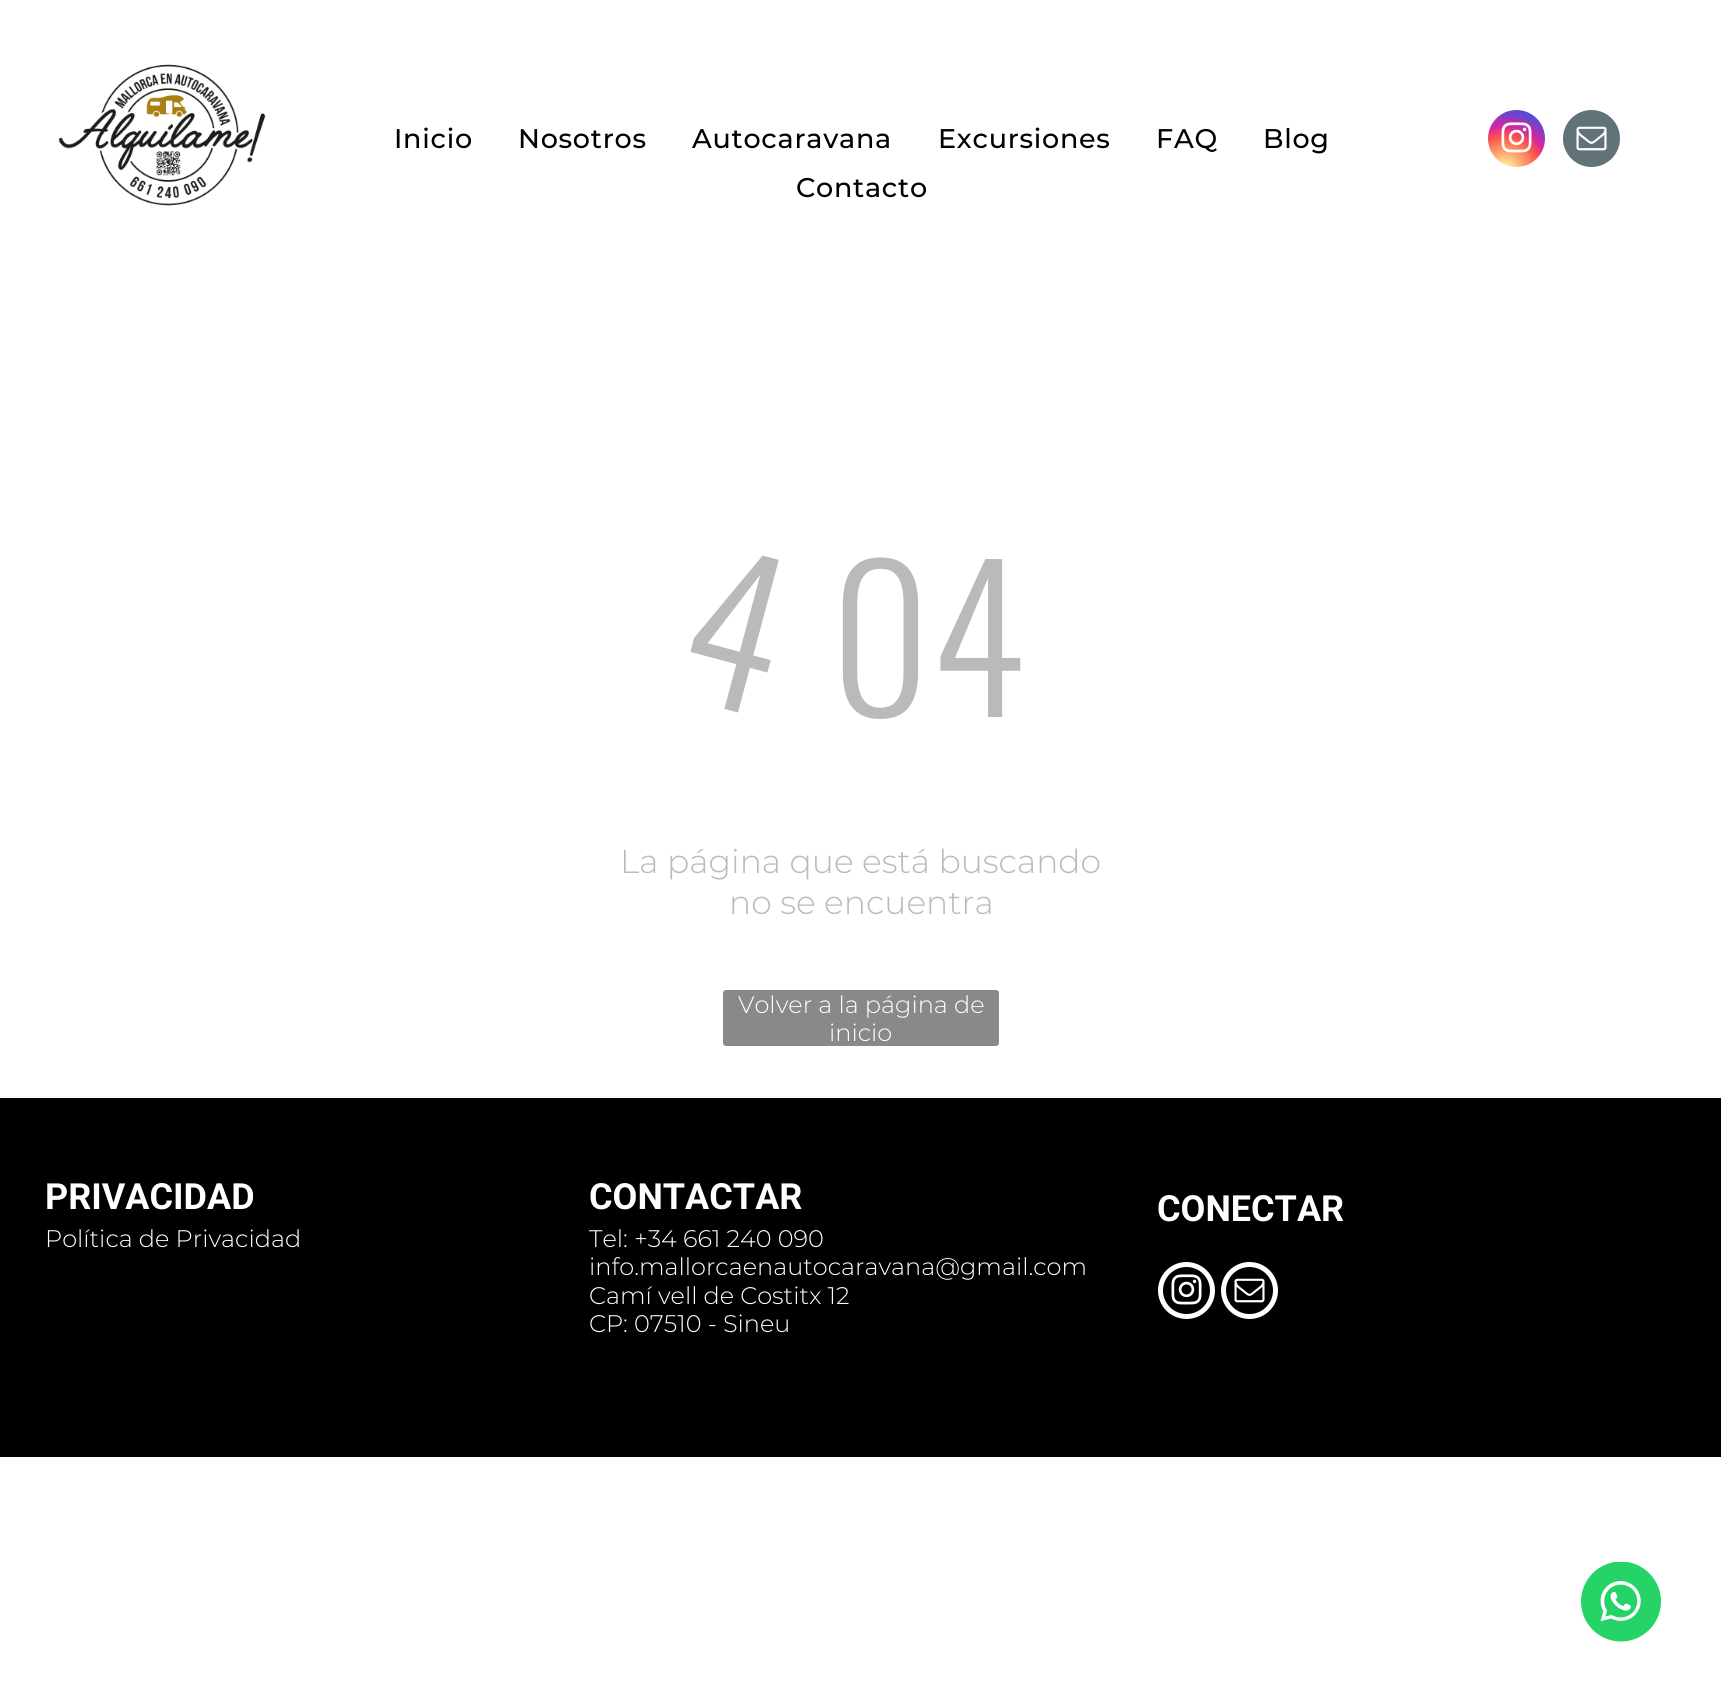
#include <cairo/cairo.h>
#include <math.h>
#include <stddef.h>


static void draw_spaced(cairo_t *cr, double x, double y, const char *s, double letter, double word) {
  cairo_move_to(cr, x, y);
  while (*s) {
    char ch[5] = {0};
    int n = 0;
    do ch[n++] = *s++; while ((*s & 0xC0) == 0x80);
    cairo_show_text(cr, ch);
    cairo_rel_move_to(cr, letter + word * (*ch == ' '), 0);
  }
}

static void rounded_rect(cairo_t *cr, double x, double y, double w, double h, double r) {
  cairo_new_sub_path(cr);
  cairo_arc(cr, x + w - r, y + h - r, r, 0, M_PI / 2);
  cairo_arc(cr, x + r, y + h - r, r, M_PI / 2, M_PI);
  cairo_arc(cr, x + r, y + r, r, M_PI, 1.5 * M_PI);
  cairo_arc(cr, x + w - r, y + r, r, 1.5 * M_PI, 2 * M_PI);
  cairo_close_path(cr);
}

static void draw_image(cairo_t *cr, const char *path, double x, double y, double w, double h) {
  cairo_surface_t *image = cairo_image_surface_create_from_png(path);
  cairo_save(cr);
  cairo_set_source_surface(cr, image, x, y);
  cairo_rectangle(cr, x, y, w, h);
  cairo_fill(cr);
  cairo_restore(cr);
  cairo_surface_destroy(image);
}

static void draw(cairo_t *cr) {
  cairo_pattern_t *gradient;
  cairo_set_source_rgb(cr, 1, 1, 1);
  cairo_paint(cr);
  draw_image(cr, "images/1.png", 58, 64, 208, 142);
  gradient = cairo_pattern_create_radial(1505, 170, 0, 1505, 170, 73);
  cairo_pattern_add_color_stop_rgba(gradient, 0, 253 / 255.0, 244 / 255.0, 151 / 255.0, 1);
  cairo_pattern_add_color_stop_rgba(gradient, 0.05, 253 / 255.0, 244 / 255.0, 151 / 255.0, 1);
  cairo_pattern_add_color_stop_rgba(gradient, 0.45, 253 / 255.0, 89 / 255.0, 73 / 255.0, 1);
  cairo_pattern_add_color_stop_rgba(gradient, 0.6, 214 / 255.0, 36 / 255.0, 159 / 255.0, 1);
  cairo_pattern_add_color_stop_rgba(gradient, 0.9, 40 / 255.0, 90 / 255.0, 235 / 255.0, 1);
  cairo_set_source(cr, gradient);
  cairo_pattern_destroy(gradient);
  cairo_arc(cr, 1516.5, 138.5, 28.5, 0, 2 * M_PI);
  cairo_fill(cr);
  draw_image(cr, "images/2.png", 1501, 122, 31, 31);
  cairo_set_source_rgb(cr, 97 / 255.0, 115 / 255.0, 121 / 255.0);
  cairo_arc(cr, 1591.5, 138.5, 28.5, 0, 2 * M_PI);
  cairo_fill(cr);
  draw_image(cr, "images/3.png", 1576, 126, 31, 25);
  cairo_set_source_rgb(cr, 137 / 255.0, 137 / 255.0, 137 / 255.0);
  rounded_rect(cr, 723, 990, 276, 56, 3);
  cairo_fill(cr);
  cairo_set_source_rgb(cr, 0, 0, 0);
  cairo_rectangle(cr, 0, 1098, 1721, 359);
  cairo_fill(cr);
  cairo_arc(cr, 1186.5, 1290.5, 26, 0, 2 * M_PI);
  cairo_set_source_rgb(cr, 1, 1, 1);
  cairo_set_line_width(cr, 5);
  cairo_stroke(cr);
  draw_image(cr, "images/4.png", 1171, 1274, 31, 31);
  cairo_arc(cr, 1249.5, 1290.5, 26, 0, 2 * M_PI);
  cairo_stroke(cr);
  draw_image(cr, "images/5.png", 1234, 1278, 31, 25);
  draw_image(cr, "images/6.png", 1581, 1562, 80, 80);
  cairo_select_font_face(cr, "Montserrat Medium", CAIRO_FONT_SLANT_NORMAL, CAIRO_FONT_WEIGHT_NORMAL);
  cairo_set_font_size(cr, 27);
  cairo_set_source_rgb(cr, 0, 0, 0);
  draw_spaced(cr, 394, 148, "Inicio", 0.75, 0);
  draw_spaced(cr, 518, 148, "Nosotros", 0.75, 0);
  draw_spaced(cr, 692, 148, "Autocaravana", 0.75, 0);
  draw_spaced(cr, 938, 148, "Excursiones", 0.75, 0);
  draw_spaced(cr, 1156, 148, "FAQ", 0.75, 0);
  draw_spaced(cr, 1263, 148, "Blog", 0.75, 0);
  draw_spaced(cr, 796, 197, "Contacto", 0.75, 0);
  cairo_select_font_face(cr, "Oswald Light", CAIRO_FONT_SLANT_NORMAL, CAIRO_FONT_WEIGHT_NORMAL);
  cairo_set_font_size(cr, 195);
  cairo_set_source_rgb(cr, 186 / 255.0, 186 / 255.0, 186 / 255.0);
  cairo_save(cr);
  cairo_translate(cr, 669, 694);
  cairo_rotate(cr, 15 * M_PI / 180);
  cairo_move_to(cr, 0, 0);
  cairo_show_text(cr, "4");
  cairo_restore(cr);
  cairo_move_to(cr, 830, 717);
  cairo_show_text(cr, "04");
  cairo_select_font_face(cr, "Montserrat Light", CAIRO_FONT_SLANT_NORMAL, CAIRO_FONT_WEIGHT_NORMAL);
  cairo_set_font_size(cr, 33);
  cairo_move_to(cr, 620, 873);
  cairo_show_text(cr, "La página que está buscando");
  cairo_move_to(cr, 729, 914);
  cairo_show_text(cr, "no se encuentra");
  cairo_set_font_size(cr, 24);
  cairo_set_source_rgb(cr, 1, 1, 1);
  cairo_move_to(cr, 738, 1013);
  cairo_show_text(cr, "Volver a la página de");
  cairo_move_to(cr, 829, 1041);
  cairo_show_text(cr, "inicio");
  cairo_select_font_face(cr, "Roboto", CAIRO_FONT_SLANT_NORMAL, CAIRO_FONT_WEIGHT_BOLD);
  cairo_set_font_size(cr, 36);
  cairo_move_to(cr, 45, 1209);
  cairo_show_text(cr, "PRIVACIDAD");
  cairo_select_font_face(cr, "Montserrat Light", CAIRO_FONT_SLANT_NORMAL, CAIRO_FONT_WEIGHT_NORMAL);
  cairo_set_font_size(cr, 24);
  cairo_move_to(cr, 45, 1247);
  cairo_show_text(cr, "Política de Privacidad");
  cairo_select_font_face(cr, "Roboto", CAIRO_FONT_SLANT_NORMAL, CAIRO_FONT_WEIGHT_BOLD);
  cairo_set_font_size(cr, 36);
  cairo_move_to(cr, 589, 1209);
  cairo_show_text(cr, "CONTACTAR");
  cairo_select_font_face(cr, "Montserrat Light", CAIRO_FONT_SLANT_NORMAL, CAIRO_FONT_WEIGHT_NORMAL);
  cairo_set_font_size(cr, 24);
  cairo_move_to(cr, 589, 1247);
  cairo_show_text(cr, "Tel: +34 661 240 090");
  cairo_move_to(cr, 589, 1275);
  cairo_show_text(cr, "info.mallorcaenautocaravana@gmail.com");
  cairo_move_to(cr, 589, 1304);
  cairo_show_text(cr, "Camí vell de Costitx 12");
  cairo_move_to(cr, 589, 1332);
  cairo_show_text(cr, "CP: 07510 - Sineu");
  cairo_select_font_face(cr, "Roboto", CAIRO_FONT_SLANT_NORMAL, CAIRO_FONT_WEIGHT_BOLD);
  cairo_set_font_size(cr, 36);
  cairo_move_to(cr, 1157, 1221);
  cairo_show_text(cr, "CONECTAR");
}

int main(void) {
  cairo_surface_t *surface = cairo_image_surface_create(CAIRO_FORMAT_RGB24, 1721, 1702);
  cairo_t *cr = cairo_create(surface);
  cairo_font_options_t *options = cairo_font_options_create();
  cairo_font_options_set_hint_metrics(options, CAIRO_HINT_METRICS_OFF);
  cairo_font_options_set_hint_style(options, CAIRO_HINT_STYLE_NONE);
  cairo_set_font_options(cr, options);
  cairo_set_miter_limit(cr, 4);
  draw(cr);
  cairo_surface_write_to_png(surface, "out.png");
  cairo_font_options_destroy(options);
  cairo_destroy(cr);
  cairo_surface_destroy(surface);
  return 0;
}
